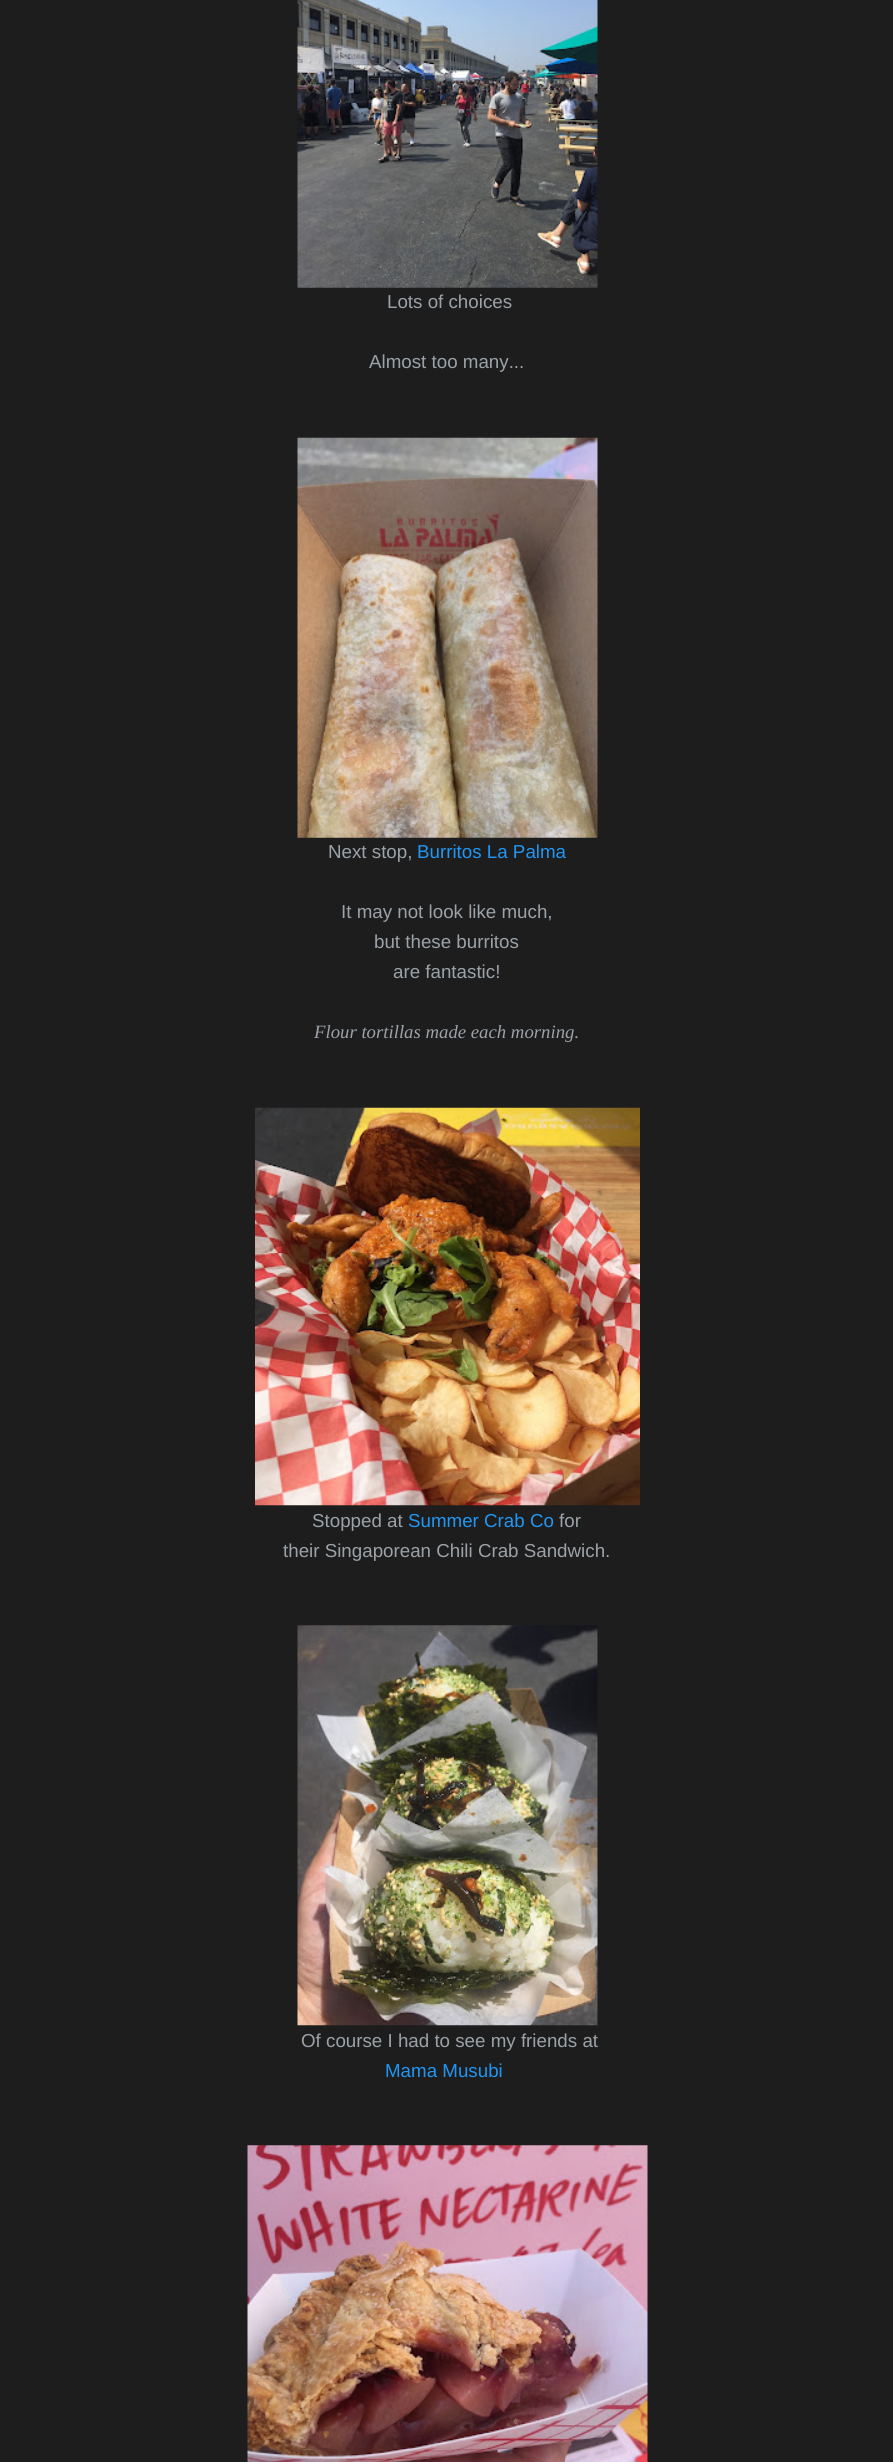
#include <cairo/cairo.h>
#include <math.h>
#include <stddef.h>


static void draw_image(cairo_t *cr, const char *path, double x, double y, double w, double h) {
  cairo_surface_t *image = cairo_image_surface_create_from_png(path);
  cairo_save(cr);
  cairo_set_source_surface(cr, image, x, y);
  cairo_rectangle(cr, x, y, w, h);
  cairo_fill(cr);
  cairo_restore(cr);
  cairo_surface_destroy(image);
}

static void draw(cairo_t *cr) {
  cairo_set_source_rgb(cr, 29 / 255.0, 29 / 255.0, 29 / 255.0);
  cairo_paint(cr);
  draw_image(cr, "images/1.png", 297, 0, 301, 288);
  draw_image(cr, "images/2.png", 297, 437, 301, 401);
  draw_image(cr, "images/3.png", 255, 1107, 385, 399);
  draw_image(cr, "images/4.png", 297, 1625, 301, 401);
  draw_image(cr, "images/5.png", 247, 2145, 401, 317);
  cairo_select_font_face(cr, "Liberation Sans", CAIRO_FONT_SLANT_NORMAL, CAIRO_FONT_WEIGHT_NORMAL);
  cairo_set_font_size(cr, 18.75);
  cairo_set_source_rgb(cr, 155 / 255.0, 162 / 255.0, 168 / 255.0);
  cairo_move_to(cr, 387, 308);
  cairo_show_text(cr, "Lots of choices");
  cairo_move_to(cr, 369, 368);
  cairo_show_text(cr, "Almost too many...");
  cairo_move_to(cr, 328, 858);
  cairo_show_text(cr, "Next stop,");
  cairo_set_source_rgb(cr, 33 / 255.0, 150 / 255.0, 243 / 255.0);
  cairo_move_to(cr, 417, 858);
  cairo_show_text(cr, "Burritos La Palma");
  cairo_set_source_rgb(cr, 155 / 255.0, 162 / 255.0, 168 / 255.0);
  cairo_move_to(cr, 341, 918);
  cairo_show_text(cr, "It may not look like much,");
  cairo_move_to(cr, 374, 948);
  cairo_show_text(cr, "but these burritos");
  cairo_move_to(cr, 393, 978);
  cairo_show_text(cr, "are fantastic!");
  cairo_select_font_face(cr, "Liberation Serif", CAIRO_FONT_SLANT_ITALIC, CAIRO_FONT_WEIGHT_NORMAL);
  cairo_move_to(cr, 314, 1038);
  cairo_show_text(cr, "Flour tortillas made each morning.");
  cairo_select_font_face(cr, "Liberation Sans", CAIRO_FONT_SLANT_NORMAL, CAIRO_FONT_WEIGHT_NORMAL);
  cairo_move_to(cr, 312, 1527);
  cairo_show_text(cr, "Stopped at");
  cairo_set_source_rgb(cr, 33 / 255.0, 150 / 255.0, 243 / 255.0);
  cairo_move_to(cr, 408, 1527);
  cairo_show_text(cr, "Summer Crab Co");
  cairo_set_source_rgb(cr, 155 / 255.0, 162 / 255.0, 168 / 255.0);
  cairo_move_to(cr, 559, 1527);
  cairo_show_text(cr, "for");
  cairo_move_to(cr, 283, 1557);
  cairo_show_text(cr, "their Singaporean Chili Crab Sandwich.");
  cairo_move_to(cr, 301, 2047);
  cairo_show_text(cr, "Of course I had to see my friends at");
  cairo_set_source_rgb(cr, 33 / 255.0, 150 / 255.0, 243 / 255.0);
  cairo_move_to(cr, 385, 2077);
  cairo_show_text(cr, "Mama Musubi");
}

int main(void) {
  cairo_surface_t *surface = cairo_image_surface_create(CAIRO_FORMAT_RGB24, 893, 2462);
  cairo_t *cr = cairo_create(surface);
  cairo_font_options_t *options = cairo_font_options_create();
  cairo_font_options_set_hint_metrics(options, CAIRO_HINT_METRICS_OFF);
  cairo_font_options_set_hint_style(options, CAIRO_HINT_STYLE_NONE);
  cairo_set_font_options(cr, options);
  cairo_set_miter_limit(cr, 4);
  draw(cr);
  cairo_surface_write_to_png(surface, "out.png");
  cairo_font_options_destroy(options);
  cairo_destroy(cr);
  cairo_surface_destroy(surface);
  return 0;
}
